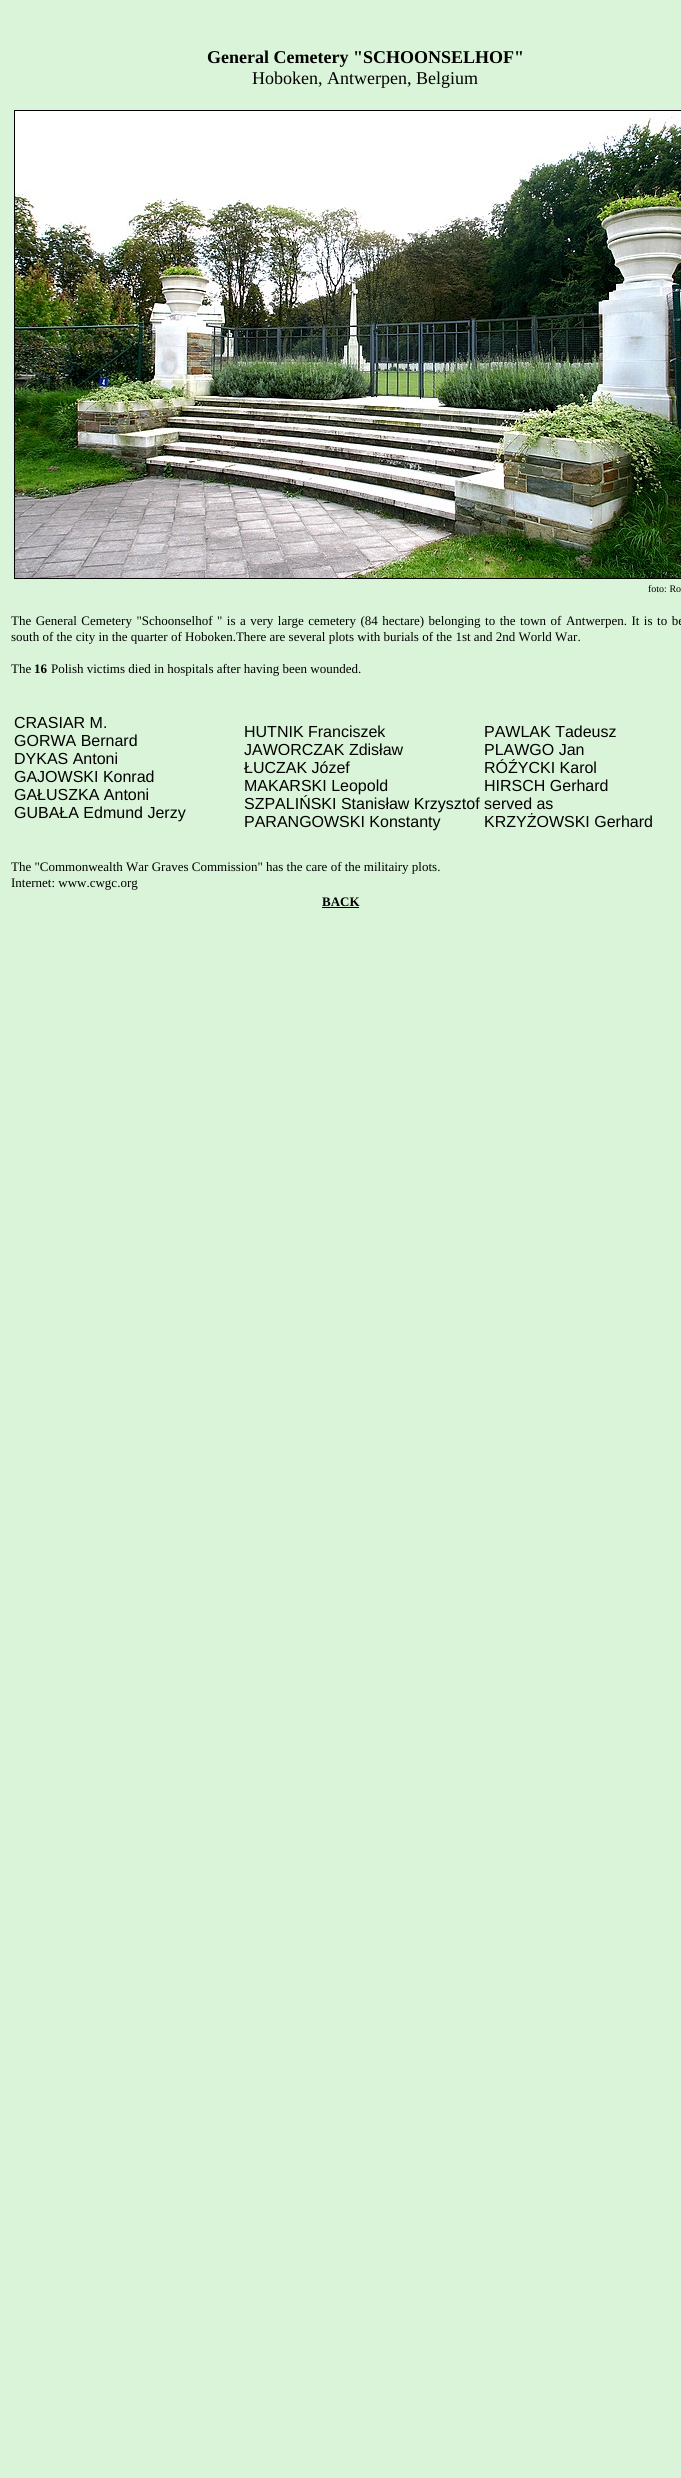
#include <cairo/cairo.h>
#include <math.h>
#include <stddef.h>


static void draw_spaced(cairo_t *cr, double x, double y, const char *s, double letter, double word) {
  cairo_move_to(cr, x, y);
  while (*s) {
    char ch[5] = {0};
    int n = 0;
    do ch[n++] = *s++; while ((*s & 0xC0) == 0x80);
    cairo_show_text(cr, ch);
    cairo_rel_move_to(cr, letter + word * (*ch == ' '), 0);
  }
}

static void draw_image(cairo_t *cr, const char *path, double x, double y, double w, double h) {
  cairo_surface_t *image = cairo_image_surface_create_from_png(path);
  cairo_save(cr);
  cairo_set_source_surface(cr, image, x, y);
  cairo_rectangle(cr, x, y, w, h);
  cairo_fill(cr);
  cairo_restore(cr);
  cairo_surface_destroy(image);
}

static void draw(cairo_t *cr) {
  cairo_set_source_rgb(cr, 217 / 255.0, 244 / 255.0, 216 / 255.0);
  cairo_paint(cr);
  cairo_rectangle(cr, 14.5, 110.5, 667, 468);
  cairo_set_source_rgb(cr, 0, 0, 0);
  cairo_set_line_width(cr, 1);
  cairo_stroke(cr);
  draw_image(cr, "images/1.png", 15, 111, 666, 467);
  cairo_rectangle(cr, 322, 907, 37, 1);
  cairo_fill(cr);
  cairo_select_font_face(cr, "Liberation Serif", CAIRO_FONT_SLANT_NORMAL, CAIRO_FONT_WEIGHT_BOLD);
  cairo_set_font_size(cr, 18);
  cairo_move_to(cr, 207, 63);
  cairo_show_text(cr, "General Cemetery \"SCHOONSELHOF\"");
  cairo_select_font_face(cr, "Liberation Serif", CAIRO_FONT_SLANT_NORMAL, CAIRO_FONT_WEIGHT_NORMAL);
  cairo_move_to(cr, 252, 84);
  cairo_show_text(cr, "Hoboken, Antwerpen, Belgium");
  cairo_set_font_size(cr, 10);
  cairo_move_to(cr, 648, 592);
  cairo_show_text(cr, "foto: Ro");
  cairo_set_font_size(cr, 13);
  draw_spaced(cr, 11, 625, "The General Cemetery \"Schoonselhof \" is a very large cemetery (84 hectare) belonging to the town of Antwerpen. It is to be", 0, 1.25);
  cairo_move_to(cr, 11, 641);
  cairo_show_text(cr, "south of the city in the quarter of Hoboken.There are several plots with burials of the 1st and 2nd World War.");
  cairo_move_to(cr, 11, 673);
  cairo_show_text(cr, "The");
  cairo_select_font_face(cr, "Liberation Serif", CAIRO_FONT_SLANT_NORMAL, CAIRO_FONT_WEIGHT_BOLD);
  cairo_move_to(cr, 34, 673);
  cairo_show_text(cr, "16");
  cairo_select_font_face(cr, "Liberation Serif", CAIRO_FONT_SLANT_NORMAL, CAIRO_FONT_WEIGHT_NORMAL);
  cairo_move_to(cr, 51, 673);
  cairo_show_text(cr, "Polish victims died in hospitals after having been wounded.");
  cairo_select_font_face(cr, "Liberation Sans", CAIRO_FONT_SLANT_NORMAL, CAIRO_FONT_WEIGHT_NORMAL);
  cairo_set_font_size(cr, 16);
  cairo_move_to(cr, 14, 728);
  cairo_show_text(cr, "CRASIAR M.");
  cairo_move_to(cr, 14, 746);
  cairo_show_text(cr, "GORWA Bernard");
  cairo_move_to(cr, 14, 764);
  cairo_show_text(cr, "DYKAS Antoni");
  cairo_move_to(cr, 14, 782);
  cairo_show_text(cr, "GAJOWSKI Konrad");
  cairo_move_to(cr, 14, 800);
  cairo_show_text(cr, "GAŁUSZKA Antoni");
  cairo_move_to(cr, 14, 818);
  cairo_show_text(cr, "GUBAŁA Edmund Jerzy");
  cairo_move_to(cr, 244, 737);
  cairo_show_text(cr, "HUTNIK Franciszek");
  cairo_move_to(cr, 244, 755);
  cairo_show_text(cr, "JAWORCZAK Zdisław");
  cairo_move_to(cr, 244, 773);
  cairo_show_text(cr, "ŁUCZAK Józef");
  cairo_move_to(cr, 244, 791);
  cairo_show_text(cr, "MAKARSKI Leopold");
  cairo_move_to(cr, 244, 809);
  cairo_show_text(cr, "SZPALIŃSKI Stanisław Krzysztof");
  cairo_move_to(cr, 244, 827);
  cairo_show_text(cr, "PARANGOWSKI Konstanty");
  cairo_move_to(cr, 484, 737);
  cairo_show_text(cr, "PAWLAK Tadeusz");
  cairo_move_to(cr, 484, 755);
  cairo_show_text(cr, "PLAWGO Jan");
  cairo_move_to(cr, 484, 773);
  cairo_show_text(cr, "RÓŹYCKI Karol");
  cairo_move_to(cr, 484, 791);
  cairo_show_text(cr, "HIRSCH Gerhard");
  cairo_move_to(cr, 484, 809);
  cairo_show_text(cr, "served as");
  cairo_move_to(cr, 484, 827);
  cairo_show_text(cr, "KRZYŻOWSKI Gerhard");
  cairo_select_font_face(cr, "Liberation Serif", CAIRO_FONT_SLANT_NORMAL, CAIRO_FONT_WEIGHT_NORMAL);
  cairo_set_font_size(cr, 13);
  cairo_move_to(cr, 11, 871);
  cairo_show_text(cr, "The \"Commonwealth War Graves Commission\" has the care of the militairy plots.");
  cairo_move_to(cr, 11, 887);
  cairo_show_text(cr, "Internet: www.cwgc.org");
  cairo_select_font_face(cr, "Liberation Serif", CAIRO_FONT_SLANT_NORMAL, CAIRO_FONT_WEIGHT_BOLD);
  cairo_move_to(cr, 322, 906);
  cairo_show_text(cr, "BACK");
}

int main(void) {
  cairo_surface_t *surface = cairo_image_surface_create(CAIRO_FORMAT_RGB24, 681, 2478);
  cairo_t *cr = cairo_create(surface);
  cairo_font_options_t *options = cairo_font_options_create();
  cairo_font_options_set_hint_metrics(options, CAIRO_HINT_METRICS_OFF);
  cairo_font_options_set_hint_style(options, CAIRO_HINT_STYLE_NONE);
  cairo_set_font_options(cr, options);
  cairo_set_miter_limit(cr, 4);
  draw(cr);
  cairo_surface_write_to_png(surface, "out.png");
  cairo_font_options_destroy(options);
  cairo_destroy(cr);
  cairo_surface_destroy(surface);
  return 0;
}
